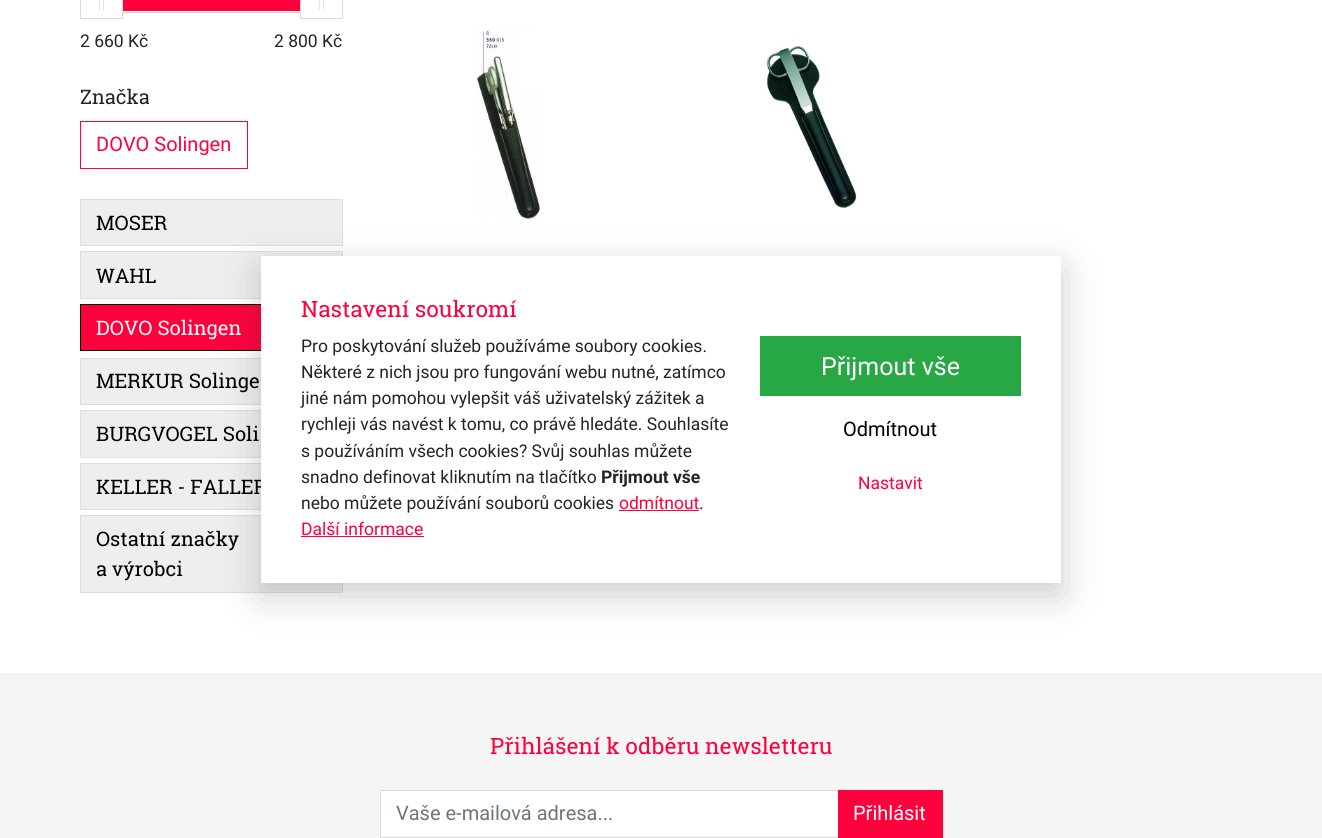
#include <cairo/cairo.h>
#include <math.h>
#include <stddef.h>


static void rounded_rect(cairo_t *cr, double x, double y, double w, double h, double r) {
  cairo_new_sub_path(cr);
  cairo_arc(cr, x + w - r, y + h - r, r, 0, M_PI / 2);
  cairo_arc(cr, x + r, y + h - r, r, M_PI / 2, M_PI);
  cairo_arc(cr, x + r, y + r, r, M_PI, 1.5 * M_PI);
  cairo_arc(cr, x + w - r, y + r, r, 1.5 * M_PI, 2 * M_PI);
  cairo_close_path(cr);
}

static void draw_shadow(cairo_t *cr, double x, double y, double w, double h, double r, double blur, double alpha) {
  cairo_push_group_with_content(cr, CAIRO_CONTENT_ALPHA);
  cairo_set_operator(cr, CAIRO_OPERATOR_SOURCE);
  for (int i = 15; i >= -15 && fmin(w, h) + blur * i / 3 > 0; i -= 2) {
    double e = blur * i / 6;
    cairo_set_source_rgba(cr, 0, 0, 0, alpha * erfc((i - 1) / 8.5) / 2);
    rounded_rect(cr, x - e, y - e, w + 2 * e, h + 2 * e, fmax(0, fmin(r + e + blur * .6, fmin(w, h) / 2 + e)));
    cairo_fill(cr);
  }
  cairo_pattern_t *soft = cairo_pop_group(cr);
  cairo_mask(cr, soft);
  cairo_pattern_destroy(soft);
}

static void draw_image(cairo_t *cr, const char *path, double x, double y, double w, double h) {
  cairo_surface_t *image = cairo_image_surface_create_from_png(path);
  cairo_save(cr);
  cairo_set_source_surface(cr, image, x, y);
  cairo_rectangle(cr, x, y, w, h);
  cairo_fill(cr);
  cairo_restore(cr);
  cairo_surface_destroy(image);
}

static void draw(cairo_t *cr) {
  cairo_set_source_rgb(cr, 1, 1, 1);
  cairo_paint(cr);
  cairo_set_source_rgb(cr, 250 / 255.0, 250 / 255.0, 250 / 255.0);
  cairo_rectangle(cr, 123, 11, 177, 1);
  cairo_fill(cr);
  cairo_rectangle(cr, 100.5, -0.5, 222, 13);
  cairo_set_source_rgb(cr, 211 / 255.0, 211 / 255.0, 211 / 255.0);
  cairo_set_line_width(cr, 1);
  cairo_stroke(cr);
  cairo_set_source_rgb(cr, 1, 1, 1);
  cairo_rectangle(cr, 100, 0, 22, 13);
  cairo_fill(cr);
  cairo_rectangle(cr, 80.5, -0.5, 42, 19);
  cairo_set_source_rgb(cr, 217 / 255.0, 217 / 255.0, 217 / 255.0);
  cairo_stroke(cr);
  cairo_set_source_rgb(cr, 232 / 255.0, 231 / 255.0, 230 / 255.0);
  cairo_rectangle(cr, 99, 0, 1, 10);
  cairo_fill(cr);
  cairo_rectangle(cr, 103, 0, 1, 10);
  cairo_fill(cr);
  cairo_set_source_rgb(cr, 1, 0, 60 / 255.0);
  cairo_rectangle(cr, 123, 0, 177, 11);
  cairo_fill(cr);
  cairo_set_source_rgb(cr, 1, 1, 1);
  cairo_rectangle(cr, 301, 0, 22, 13);
  cairo_fill(cr);
  cairo_rectangle(cr, 300.5, -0.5, 42, 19);
  cairo_set_source_rgb(cr, 217 / 255.0, 217 / 255.0, 217 / 255.0);
  cairo_stroke(cr);
  cairo_set_source_rgb(cr, 232 / 255.0, 231 / 255.0, 230 / 255.0);
  cairo_rectangle(cr, 319, 0, 1, 10);
  cairo_fill(cr);
  cairo_rectangle(cr, 323, 0, 1, 10);
  cairo_fill(cr);
  cairo_rectangle(cr, 80.5, 121.5, 167, 47);
  cairo_set_source_rgb(cr, 1, 0, 60 / 255.0);
  cairo_stroke(cr);
  cairo_set_source_rgb(cr, 238 / 255.0, 238 / 255.0, 238 / 255.0);
  cairo_rectangle(cr, 80.5, 199.5, 262, 46);
  cairo_fill_preserve(cr);
  cairo_set_source_rgb(cr, 221 / 255.0, 221 / 255.0, 221 / 255.0);
  cairo_stroke(cr);
  cairo_set_source_rgb(cr, 238 / 255.0, 238 / 255.0, 238 / 255.0);
  cairo_rectangle(cr, 80.5, 251.5, 262, 47);
  cairo_fill_preserve(cr);
  cairo_set_source_rgb(cr, 221 / 255.0, 221 / 255.0, 221 / 255.0);
  cairo_stroke(cr);
  cairo_set_source_rgb(cr, 1, 0, 60 / 255.0);
  cairo_rectangle(cr, 81, 305, 180, 45);
  cairo_fill(cr);
  cairo_rectangle(cr, 80.5, 304.5, 262, 46);
  cairo_set_source_rgb(cr, 0, 0, 0);
  cairo_stroke(cr);
  cairo_set_source_rgb(cr, 238 / 255.0, 238 / 255.0, 238 / 255.0);
  cairo_rectangle(cr, 81, 359, 180, 45);
  cairo_fill(cr);
  cairo_rectangle(cr, 80.5, 358.5, 262, 46);
  cairo_set_source_rgb(cr, 221 / 255.0, 221 / 255.0, 221 / 255.0);
  cairo_stroke(cr);
  cairo_set_source_rgb(cr, 238 / 255.0, 238 / 255.0, 238 / 255.0);
  cairo_rectangle(cr, 81, 411, 180, 46);
  cairo_fill(cr);
  cairo_rectangle(cr, 80.5, 410.5, 262, 47);
  cairo_set_source_rgb(cr, 221 / 255.0, 221 / 255.0, 221 / 255.0);
  cairo_stroke(cr);
  cairo_set_source_rgb(cr, 238 / 255.0, 238 / 255.0, 238 / 255.0);
  cairo_rectangle(cr, 81, 464, 180, 45);
  cairo_fill(cr);
  cairo_rectangle(cr, 80.5, 463.5, 262, 46);
  cairo_set_source_rgb(cr, 221 / 255.0, 221 / 255.0, 221 / 255.0);
  cairo_stroke(cr);
  cairo_set_source_rgb(cr, 238 / 255.0, 238 / 255.0, 238 / 255.0);
  cairo_rectangle(cr, 80.5, 515.5, 262, 77);
  cairo_fill_preserve(cr);
  cairo_set_source_rgb(cr, 221 / 255.0, 221 / 255.0, 221 / 255.0);
  cairo_stroke(cr);
  draw_image(cr, "images/1.png", 475, 29, 67, 191);
  draw_image(cr, "images/2.png", 766, 46, 91, 162);
  cairo_set_source_rgb(cr, 52 / 255.0, 58 / 255.0, 64 / 255.0);
  draw_shadow(cr, 261, 269, 800, 326, 0, 19, 0.25);
  cairo_set_source_rgb(cr, 245 / 255.0, 245 / 255.0, 245 / 255.0);
  cairo_rectangle(cr, 0, 673, 1322, 165);
  cairo_fill(cr);
  cairo_set_source_rgb(cr, 1, 1, 1);
  cairo_rectangle(cr, 381, 791, 457, 45);
  cairo_fill(cr);
  cairo_rectangle(cr, 380.5, 790.5, 458, 47);
  cairo_set_source_rgb(cr, 221 / 255.0, 221 / 255.0, 221 / 255.0);
  cairo_stroke(cr);
  cairo_set_source_rgb(cr, 1, 0, 60 / 255.0);
  cairo_rectangle(cr, 838, 790, 105, 48);
  cairo_fill(cr);
  cairo_select_font_face(cr, "Roboto", CAIRO_FONT_SLANT_NORMAL, CAIRO_FONT_WEIGHT_NORMAL);
  cairo_set_font_size(cr, 17.5);
  cairo_set_source_rgb(cr, 33 / 255.0, 37 / 255.0, 41 / 255.0);
  cairo_move_to(cr, 80, 47);
  cairo_show_text(cr, "2 660 Kč");
  cairo_move_to(cr, 274, 47);
  cairo_show_text(cr, "2 800 Kč");
  cairo_select_font_face(cr, "Roboto Slab", CAIRO_FONT_SLANT_NORMAL, CAIRO_FONT_WEIGHT_NORMAL);
  cairo_set_font_size(cr, 20);
  cairo_move_to(cr, 80, 104);
  cairo_show_text(cr, "Značka");
  cairo_select_font_face(cr, "Roboto", CAIRO_FONT_SLANT_NORMAL, CAIRO_FONT_WEIGHT_NORMAL);
  cairo_set_source_rgb(cr, 1, 0, 60 / 255.0);
  cairo_move_to(cr, 96, 151);
  cairo_show_text(cr, "DOVO Solingen");
  cairo_select_font_face(cr, "Roboto Slab", CAIRO_FONT_SLANT_NORMAL, CAIRO_FONT_WEIGHT_NORMAL);
  cairo_set_source_rgb(cr, 0, 0, 0);
  cairo_move_to(cr, 96, 230);
  cairo_show_text(cr, "MOSER");
  cairo_move_to(cr, 96, 283);
  cairo_show_text(cr, "WAHL");
  cairo_set_source_rgb(cr, 1, 1, 1);
  cairo_move_to(cr, 96, 335);
  cairo_show_text(cr, "DOVO Solingen");
  cairo_set_source_rgb(cr, 0, 0, 0);
  cairo_move_to(cr, 96, 388);
  cairo_show_text(cr, "MERKUR Solinge");
  cairo_move_to(cr, 96, 441);
  cairo_show_text(cr, "BURGVOGEL Soli");
  cairo_move_to(cr, 96, 494);
  cairo_show_text(cr, "KELLER - FALLER");
  cairo_move_to(cr, 96, 546);
  cairo_show_text(cr, "Ostatní značky");
  cairo_move_to(cr, 96, 576);
  cairo_show_text(cr, "a výrobci");
  cairo_set_source_rgb(cr, 1, 1, 1);
  cairo_rectangle(cr, 261, 256, 800, 327);
  cairo_fill(cr);
  cairo_set_font_size(cr, 22.5);
  cairo_set_source_rgb(cr, 1, 0, 60 / 255.0);
  cairo_move_to(cr, 301, 317);
  cairo_show_text(cr, "Nastavení soukromí");
  cairo_select_font_face(cr, "Roboto", CAIRO_FONT_SLANT_NORMAL, CAIRO_FONT_WEIGHT_NORMAL);
  cairo_set_font_size(cr, 17.5);
  cairo_set_source_rgb(cr, 33 / 255.0, 37 / 255.0, 41 / 255.0);
  cairo_move_to(cr, 301, 352);
  cairo_show_text(cr, "Pro poskytování služeb používáme soubory cookies.");
  cairo_move_to(cr, 301, 378);
  cairo_show_text(cr, "Některé z nich jsou pro fungování webu nutné, zatímco");
  cairo_move_to(cr, 301, 404);
  cairo_show_text(cr, "jiné nám pomohou vylepšit váš uživatelský zážitek a");
  cairo_move_to(cr, 301, 430);
  cairo_show_text(cr, "rychleji vás navést k tomu, co právě hledáte. Souhlasíte");
  cairo_move_to(cr, 301, 457);
  cairo_show_text(cr, "s používáním všech cookies? Svůj souhlas můžete");
  cairo_move_to(cr, 301, 483);
  cairo_show_text(cr, "snadno definovat kliknutím na tlačítko");
  cairo_select_font_face(cr, "Roboto", CAIRO_FONT_SLANT_NORMAL, CAIRO_FONT_WEIGHT_BOLD);
  cairo_move_to(cr, 601, 483);
  cairo_show_text(cr, "Přijmout vše");
  cairo_select_font_face(cr, "Roboto", CAIRO_FONT_SLANT_NORMAL, CAIRO_FONT_WEIGHT_NORMAL);
  cairo_move_to(cr, 301, 509);
  cairo_show_text(cr, "nebo můžete používání souborů cookies");
  cairo_set_source_rgb(cr, 1, 0, 60 / 255.0);
  cairo_move_to(cr, 619, 509);
  cairo_show_text(cr, "odmítnout");
  cairo_rectangle(cr, 619, 510, 80, 1);
  cairo_fill(cr);
  cairo_set_source_rgb(cr, 33 / 255.0, 37 / 255.0, 41 / 255.0);
  cairo_move_to(cr, 699, 509);
  cairo_show_text(cr, ".");
  cairo_set_source_rgb(cr, 1, 0, 60 / 255.0);
  cairo_move_to(cr, 301, 535);
  cairo_show_text(cr, "Další informace");
  cairo_rectangle(cr, 301, 536, 123, 1);
  cairo_fill(cr);
  cairo_set_source_rgb(cr, 40 / 255.0, 167 / 255.0, 69 / 255.0);
  cairo_rectangle(cr, 760, 336, 261, 60);
  cairo_fill(cr);
  cairo_set_font_size(cr, 25);
  cairo_set_source_rgb(cr, 1, 1, 1);
  cairo_move_to(cr, 821, 375);
  cairo_show_text(cr, "Přijmout vše");
  cairo_set_font_size(cr, 20);
  cairo_set_source_rgb(cr, 0, 0, 0);
  cairo_move_to(cr, 843, 436);
  cairo_show_text(cr, "Odmítnout");
  cairo_set_font_size(cr, 17.5);
  cairo_set_source_rgb(cr, 1, 0, 60 / 255.0);
  cairo_move_to(cr, 858, 489);
  cairo_show_text(cr, "Nastavit");
  cairo_select_font_face(cr, "Roboto Slab", CAIRO_FONT_SLANT_NORMAL, CAIRO_FONT_WEIGHT_NORMAL);
  cairo_set_font_size(cr, 22.5);
  cairo_move_to(cr, 490, 754);
  cairo_show_text(cr, "Přihlášení k odběru newsletteru");
  cairo_select_font_face(cr, "Roboto", CAIRO_FONT_SLANT_NORMAL, CAIRO_FONT_WEIGHT_NORMAL);
  cairo_set_font_size(cr, 20);
  cairo_set_source_rgb(cr, 108 / 255.0, 117 / 255.0, 125 / 255.0);
  cairo_move_to(cr, 396, 820);
  cairo_show_text(cr, "Vaše e-mailová adresa...");
  cairo_set_source_rgb(cr, 1, 1, 1);
  cairo_move_to(cr, 853, 820);
  cairo_show_text(cr, "Přihlásit");
}

int main(void) {
  cairo_surface_t *surface = cairo_image_surface_create(CAIRO_FORMAT_RGB24, 1322, 838);
  cairo_t *cr = cairo_create(surface);
  cairo_font_options_t *options = cairo_font_options_create();
  cairo_font_options_set_hint_metrics(options, CAIRO_HINT_METRICS_OFF);
  cairo_font_options_set_hint_style(options, CAIRO_HINT_STYLE_NONE);
  cairo_set_font_options(cr, options);
  cairo_set_miter_limit(cr, 4);
  draw(cr);
  cairo_surface_write_to_png(surface, "out.png");
  cairo_font_options_destroy(options);
  cairo_destroy(cr);
  cairo_surface_destroy(surface);
  return 0;
}
